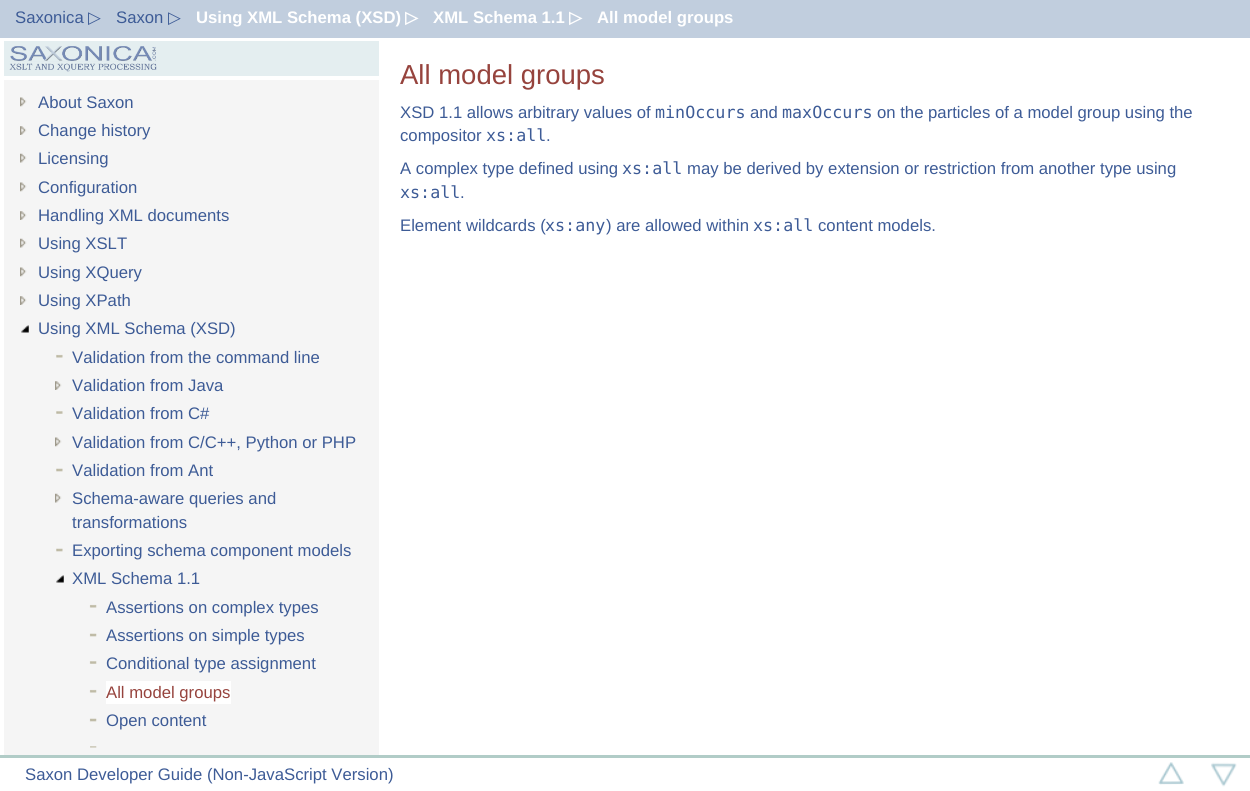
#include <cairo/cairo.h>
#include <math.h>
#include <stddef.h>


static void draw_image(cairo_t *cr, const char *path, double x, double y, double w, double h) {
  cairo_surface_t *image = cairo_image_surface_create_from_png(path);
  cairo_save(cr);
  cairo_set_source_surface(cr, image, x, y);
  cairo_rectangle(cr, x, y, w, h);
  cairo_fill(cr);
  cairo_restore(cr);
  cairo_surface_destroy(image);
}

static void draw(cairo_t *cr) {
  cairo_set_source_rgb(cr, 1, 1, 1);
  cairo_paint(cr);
  cairo_set_source_rgb(cr, 193 / 255.0, 206 / 255.0, 222 / 255.0);
  cairo_rectangle(cr, 0, 0, 1250, 38);
  cairo_fill(cr);
  cairo_set_source_rgb(cr, 245 / 255.0, 245 / 255.0, 245 / 255.0);
  cairo_rectangle(cr, 4, 80, 375, 675);
  cairo_fill(cr);
  cairo_set_source_rgb(cr, 228 / 255.0, 238 / 255.0, 240 / 255.0);
  cairo_rectangle(cr, 4, 41, 375, 35);
  cairo_fill(cr);
  draw_image(cr, "images/1.png", 9, 46, 148, 26);
  draw_image(cr, "images/2.png", 20, 97, 7, 10);
  draw_image(cr, "images/3.png", 20, 126, 7, 9);
  draw_image(cr, "images/4.png", 20, 153, 7, 10);
  draw_image(cr, "images/2.png", 20, 182, 7, 10);
  draw_image(cr, "images/3.png", 20, 211, 7, 9);
  draw_image(cr, "images/4.png", 20, 238, 7, 10);
  draw_image(cr, "images/2.png", 20, 267, 7, 10);
  draw_image(cr, "images/3.png", 20, 296, 7, 9);
  draw_image(cr, "images/5.png", 21, 325, 8, 8);
  draw_image(cr, "images/6.png", 56, 354, 7, 4);
  draw_image(cr, "images/7.png", 55, 381, 7, 9);
  draw_image(cr, "images/8.png", 56, 411, 7, 3);
  draw_image(cr, "images/9.png", 55, 437, 7, 10);
  draw_image(cr, "images/10.png", 56, 468, 7, 4);
  draw_image(cr, "images/11.png", 55, 493, 7, 10);
  draw_image(cr, "images/10.png", 56, 548, 7, 4);
  draw_image(cr, "images/12.png", 56, 575, 8, 8);
  draw_image(cr, "images/13.png", 89, 604, 8, 4);
  draw_image(cr, "images/14.png", 89, 633, 8, 4);
  draw_image(cr, "images/15.png", 89, 661, 8, 3);
  draw_image(cr, "images/13.png", 89, 689, 8, 4);
  cairo_set_source_rgb(cr, 1, 1, 1);
  cairo_rectangle(cr, 106, 681, 125, 23);
  cairo_fill(cr);
  draw_image(cr, "images/14.png", 89, 718, 8, 4);
  draw_image(cr, "images/16.png", 90, 746, 7, 2);
  cairo_set_source_rgb(cr, 177 / 255.0, 204 / 255.0, 199 / 255.0);
  cairo_rectangle(cr, 0, 755, 1250, 3);
  cairo_fill(cr);
  draw_image(cr, "images/17.png", 1158, 762, 26, 23);
  draw_image(cr, "images/18.png", 1211, 762, 26, 25);
  cairo_select_font_face(cr, "Liberation Sans", CAIRO_FONT_SLANT_NORMAL, CAIRO_FONT_WEIGHT_NORMAL);
  cairo_set_font_size(cr, 16.7);
  cairo_set_source_rgb(cr, 61 / 255.0, 91 / 255.0, 150 / 255.0);
  cairo_move_to(cr, 15, 23);
  cairo_show_text(cr, "Saxonica");
  cairo_select_font_face(cr, "DejaVu Sans", CAIRO_FONT_SLANT_NORMAL, CAIRO_FONT_WEIGHT_NORMAL);
  cairo_move_to(cr, 88, 23);
  cairo_show_text(cr, "▷");
  cairo_select_font_face(cr, "Liberation Sans", CAIRO_FONT_SLANT_NORMAL, CAIRO_FONT_WEIGHT_NORMAL);
  cairo_move_to(cr, 116, 23);
  cairo_show_text(cr, "Saxon");
  cairo_select_font_face(cr, "DejaVu Sans", CAIRO_FONT_SLANT_NORMAL, CAIRO_FONT_WEIGHT_NORMAL);
  cairo_move_to(cr, 168, 23);
  cairo_show_text(cr, "▷");
  cairo_select_font_face(cr, "Liberation Sans", CAIRO_FONT_SLANT_NORMAL, CAIRO_FONT_WEIGHT_BOLD);
  cairo_set_source_rgb(cr, 1, 1, 1);
  cairo_move_to(cr, 196, 23);
  cairo_show_text(cr, "Using XML Schema (XSD)");
  cairo_select_font_face(cr, "DejaVu Sans", CAIRO_FONT_SLANT_NORMAL, CAIRO_FONT_WEIGHT_BOLD);
  cairo_move_to(cr, 405, 23);
  cairo_show_text(cr, "▷");
  cairo_select_font_face(cr, "Liberation Sans", CAIRO_FONT_SLANT_NORMAL, CAIRO_FONT_WEIGHT_BOLD);
  cairo_move_to(cr, 433, 23);
  cairo_show_text(cr, "XML Schema 1.1");
  cairo_select_font_face(cr, "DejaVu Sans", CAIRO_FONT_SLANT_NORMAL, CAIRO_FONT_WEIGHT_BOLD);
  cairo_move_to(cr, 569, 23);
  cairo_show_text(cr, "▷");
  cairo_select_font_face(cr, "Liberation Sans", CAIRO_FONT_SLANT_NORMAL, CAIRO_FONT_WEIGHT_BOLD);
  cairo_move_to(cr, 597, 23);
  cairo_show_text(cr, "All model groups");
  cairo_select_font_face(cr, "Liberation Sans", CAIRO_FONT_SLANT_NORMAL, CAIRO_FONT_WEIGHT_NORMAL);
  cairo_set_source_rgb(cr, 61 / 255.0, 91 / 255.0, 150 / 255.0);
  cairo_move_to(cr, 38, 108);
  cairo_show_text(cr, "About Saxon");
  cairo_move_to(cr, 38, 136);
  cairo_show_text(cr, "Change history");
  cairo_move_to(cr, 38, 164);
  cairo_show_text(cr, "Licensing");
  cairo_move_to(cr, 38, 193);
  cairo_show_text(cr, "Configuration");
  cairo_move_to(cr, 38, 221);
  cairo_show_text(cr, "Handling XML documents");
  cairo_move_to(cr, 38, 249);
  cairo_show_text(cr, "Using XSLT");
  cairo_move_to(cr, 38, 278);
  cairo_show_text(cr, "Using XQuery");
  cairo_move_to(cr, 38, 306);
  cairo_show_text(cr, "Using XPath");
  cairo_move_to(cr, 38, 334);
  cairo_show_text(cr, "Using XML Schema (XSD)");
  cairo_move_to(cr, 72, 363);
  cairo_show_text(cr, "Validation from the command line");
  cairo_move_to(cr, 72, 391);
  cairo_show_text(cr, "Validation from Java");
  cairo_move_to(cr, 72, 419);
  cairo_show_text(cr, "Validation from C#");
  cairo_move_to(cr, 72, 448);
  cairo_show_text(cr, "Validation from C/C++, Python or PHP");
  cairo_move_to(cr, 72, 476);
  cairo_show_text(cr, "Validation from Ant");
  cairo_move_to(cr, 72, 504);
  cairo_show_text(cr, "Schema-aware queries and");
  cairo_move_to(cr, 72, 528);
  cairo_show_text(cr, "transformations");
  cairo_move_to(cr, 72, 556);
  cairo_show_text(cr, "Exporting schema component models");
  cairo_move_to(cr, 72, 584);
  cairo_show_text(cr, "XML Schema 1.1");
  cairo_move_to(cr, 106, 613);
  cairo_show_text(cr, "Assertions on complex types");
  cairo_move_to(cr, 106, 641);
  cairo_show_text(cr, "Assertions on simple types");
  cairo_move_to(cr, 106, 669);
  cairo_show_text(cr, "Conditional type assignment");
  cairo_set_source_rgb(cr, 150 / 255.0, 67 / 255.0, 61 / 255.0);
  cairo_move_to(cr, 106, 698);
  cairo_show_text(cr, "All model groups");
  cairo_set_source_rgb(cr, 61 / 255.0, 91 / 255.0, 150 / 255.0);
  cairo_move_to(cr, 106, 726);
  cairo_show_text(cr, "Open content");
  cairo_set_font_size(cr, 27.5);
  cairo_set_source_rgb(cr, 150 / 255.0, 67 / 255.0, 61 / 255.0);
  cairo_move_to(cr, 400, 84);
  cairo_show_text(cr, "All model groups");
  cairo_set_font_size(cr, 16.7);
  cairo_set_source_rgb(cr, 61 / 255.0, 91 / 255.0, 150 / 255.0);
  cairo_move_to(cr, 400, 118);
  cairo_show_text(cr, "XSD 1.1 allows arbitrary values of");
  cairo_select_font_face(cr, "DejaVu Sans Mono", CAIRO_FONT_SLANT_NORMAL, CAIRO_FONT_WEIGHT_NORMAL);
  cairo_move_to(cr, 655, 118);
  cairo_show_text(cr, "minOccurs");
  cairo_select_font_face(cr, "Liberation Sans", CAIRO_FONT_SLANT_NORMAL, CAIRO_FONT_WEIGHT_NORMAL);
  cairo_move_to(cr, 750, 118);
  cairo_show_text(cr, "and");
  cairo_select_font_face(cr, "DejaVu Sans Mono", CAIRO_FONT_SLANT_NORMAL, CAIRO_FONT_WEIGHT_NORMAL);
  cairo_move_to(cr, 782, 118);
  cairo_show_text(cr, "maxOccurs");
  cairo_select_font_face(cr, "Liberation Sans", CAIRO_FONT_SLANT_NORMAL, CAIRO_FONT_WEIGHT_NORMAL);
  cairo_move_to(cr, 877, 118);
  cairo_show_text(cr, "on the particles of a model group using the");
  cairo_move_to(cr, 400, 141);
  cairo_show_text(cr, "compositor");
  cairo_select_font_face(cr, "DejaVu Sans Mono", CAIRO_FONT_SLANT_NORMAL, CAIRO_FONT_WEIGHT_NORMAL);
  cairo_move_to(cr, 486, 141);
  cairo_show_text(cr, "xs:all");
  cairo_select_font_face(cr, "Liberation Sans", CAIRO_FONT_SLANT_NORMAL, CAIRO_FONT_WEIGHT_NORMAL);
  cairo_move_to(cr, 546, 141);
  cairo_show_text(cr, ".");
  cairo_move_to(cr, 400, 174);
  cairo_show_text(cr, "A complex type defined using");
  cairo_select_font_face(cr, "DejaVu Sans Mono", CAIRO_FONT_SLANT_NORMAL, CAIRO_FONT_WEIGHT_NORMAL);
  cairo_move_to(cr, 622, 174);
  cairo_show_text(cr, "xs:all");
  cairo_select_font_face(cr, "Liberation Sans", CAIRO_FONT_SLANT_NORMAL, CAIRO_FONT_WEIGHT_NORMAL);
  cairo_move_to(cr, 687, 174);
  cairo_show_text(cr, "may be derived by extension or restriction from another type using");
  cairo_select_font_face(cr, "DejaVu Sans Mono", CAIRO_FONT_SLANT_NORMAL, CAIRO_FONT_WEIGHT_NORMAL);
  cairo_move_to(cr, 400, 198);
  cairo_show_text(cr, "xs:all");
  cairo_select_font_face(cr, "Liberation Sans", CAIRO_FONT_SLANT_NORMAL, CAIRO_FONT_WEIGHT_NORMAL);
  cairo_move_to(cr, 460, 198);
  cairo_show_text(cr, ".");
  cairo_move_to(cr, 400, 231);
  cairo_show_text(cr, "Element wildcards (");
  cairo_select_font_face(cr, "DejaVu Sans Mono", CAIRO_FONT_SLANT_NORMAL, CAIRO_FONT_WEIGHT_NORMAL);
  cairo_move_to(cr, 545, 231);
  cairo_show_text(cr, "xs:any");
  cairo_select_font_face(cr, "Liberation Sans", CAIRO_FONT_SLANT_NORMAL, CAIRO_FONT_WEIGHT_NORMAL);
  cairo_move_to(cr, 606, 231);
  cairo_show_text(cr, ") are allowed within");
  cairo_select_font_face(cr, "DejaVu Sans Mono", CAIRO_FONT_SLANT_NORMAL, CAIRO_FONT_WEIGHT_NORMAL);
  cairo_move_to(cr, 753, 231);
  cairo_show_text(cr, "xs:all");
  cairo_select_font_face(cr, "Liberation Sans", CAIRO_FONT_SLANT_NORMAL, CAIRO_FONT_WEIGHT_NORMAL);
  cairo_move_to(cr, 818, 231);
  cairo_show_text(cr, "content models.");
  cairo_move_to(cr, 25, 780);
  cairo_show_text(cr, "Saxon Developer Guide (Non-JavaScript Version)");
}

int main(void) {
  cairo_surface_t *surface = cairo_image_surface_create(CAIRO_FORMAT_RGB24, 1250, 791);
  cairo_t *cr = cairo_create(surface);
  cairo_font_options_t *options = cairo_font_options_create();
  cairo_font_options_set_hint_metrics(options, CAIRO_HINT_METRICS_OFF);
  cairo_font_options_set_hint_style(options, CAIRO_HINT_STYLE_NONE);
  cairo_set_font_options(cr, options);
  cairo_set_miter_limit(cr, 4);
  draw(cr);
  cairo_surface_write_to_png(surface, "out.png");
  cairo_font_options_destroy(options);
  cairo_destroy(cr);
  cairo_surface_destroy(surface);
  return 0;
}
